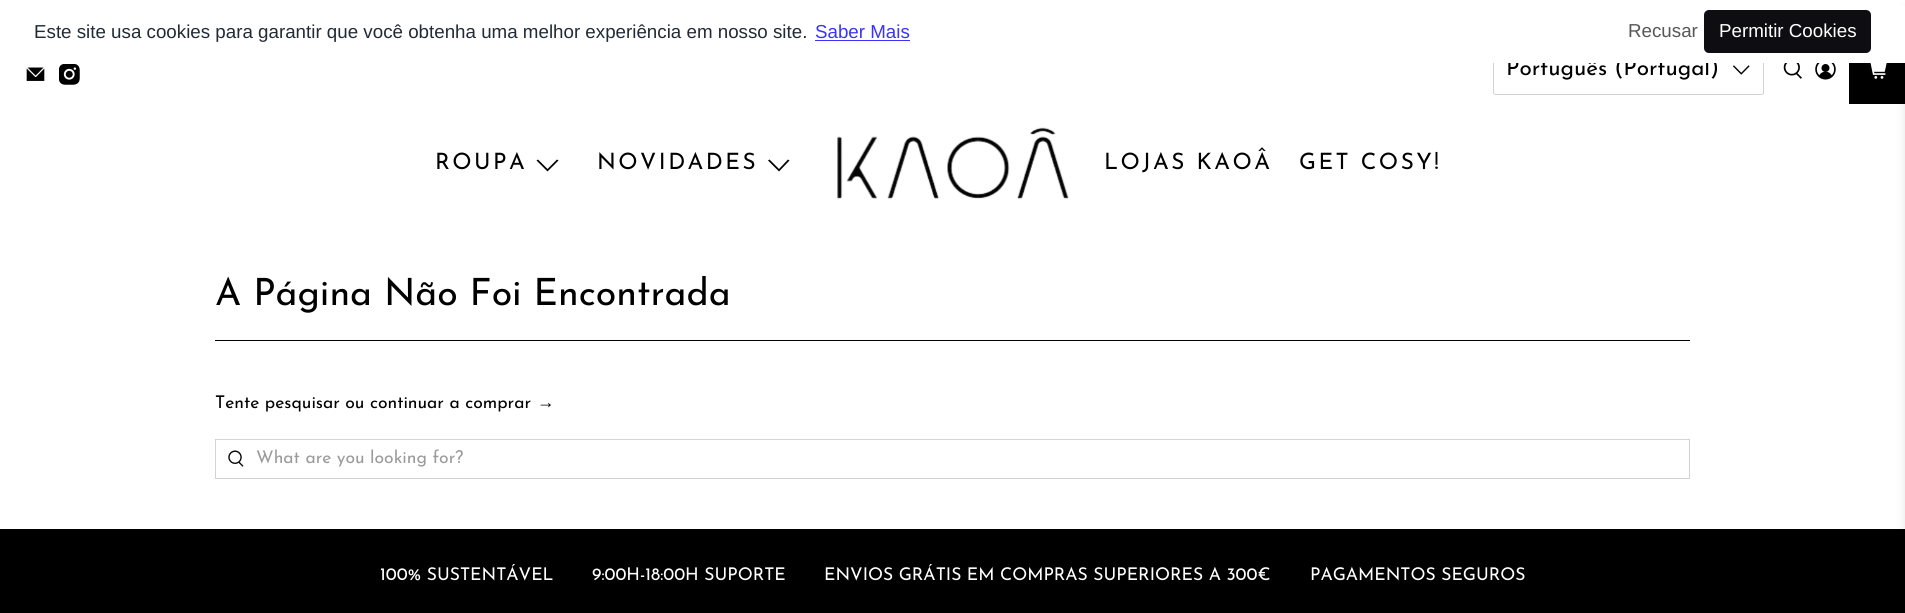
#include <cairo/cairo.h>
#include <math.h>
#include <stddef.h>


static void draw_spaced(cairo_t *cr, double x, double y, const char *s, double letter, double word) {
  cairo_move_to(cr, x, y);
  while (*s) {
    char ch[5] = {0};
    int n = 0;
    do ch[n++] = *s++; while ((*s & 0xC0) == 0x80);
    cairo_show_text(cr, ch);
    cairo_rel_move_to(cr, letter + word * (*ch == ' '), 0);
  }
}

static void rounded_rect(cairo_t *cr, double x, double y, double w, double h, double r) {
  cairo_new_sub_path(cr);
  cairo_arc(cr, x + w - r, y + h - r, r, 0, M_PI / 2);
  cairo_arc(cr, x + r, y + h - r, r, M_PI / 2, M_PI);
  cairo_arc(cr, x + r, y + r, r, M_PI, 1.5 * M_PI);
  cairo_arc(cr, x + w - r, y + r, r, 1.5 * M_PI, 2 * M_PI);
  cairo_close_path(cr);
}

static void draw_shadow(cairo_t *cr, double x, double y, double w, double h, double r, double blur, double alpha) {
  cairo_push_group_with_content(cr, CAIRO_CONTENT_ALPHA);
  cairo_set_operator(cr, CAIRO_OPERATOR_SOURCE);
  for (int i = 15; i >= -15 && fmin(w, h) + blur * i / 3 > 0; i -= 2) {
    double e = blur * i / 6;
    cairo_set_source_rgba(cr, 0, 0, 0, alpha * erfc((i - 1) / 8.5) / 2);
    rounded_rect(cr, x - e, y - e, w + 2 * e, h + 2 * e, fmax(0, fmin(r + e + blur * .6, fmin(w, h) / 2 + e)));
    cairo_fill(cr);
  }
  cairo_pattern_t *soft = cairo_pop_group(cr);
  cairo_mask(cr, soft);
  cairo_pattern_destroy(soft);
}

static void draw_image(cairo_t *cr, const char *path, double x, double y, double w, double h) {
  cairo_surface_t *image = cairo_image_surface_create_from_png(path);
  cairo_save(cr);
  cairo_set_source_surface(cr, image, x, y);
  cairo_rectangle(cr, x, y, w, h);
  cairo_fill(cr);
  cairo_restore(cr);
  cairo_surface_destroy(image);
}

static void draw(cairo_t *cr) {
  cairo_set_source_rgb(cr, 1, 1, 1);
  cairo_paint(cr);
  cairo_set_source_rgb(cr, 59 / 255.0, 51 / 255.0, 253 / 255.0);
  cairo_rectangle(cr, 815, 40, 95, 1);
  cairo_fill(cr);
  cairo_set_source_rgb(cr, 0, 0, 0);
  cairo_rectangle(cr, 1849, 63, 56, 41);
  cairo_fill(cr);
  cairo_rectangle(cr, 0, 529, 1905, 84);
  cairo_fill(cr);
  cairo_set_source_rgb(cr, 10 / 255.0, 10 / 255.0, 10 / 255.0);
  draw_shadow(cr, 1905, 10, 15, 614, 0, 5, 0.1);
  draw_image(cr, "images/1.png", 26, 67, 19, 14);
  draw_image(cr, "images/2.png", 59, 64, 21, 21);
  rounded_rect(cr, 1493.5, 45.5, 270, 49, 2);
  cairo_set_source_rgb(cr, 211 / 255.0, 211 / 255.0, 211 / 255.0);
  cairo_set_line_width(cr, 1);
  cairo_stroke(cr);
  draw_image(cr, "images/3.png", 1733, 65, 17, 10);
  draw_image(cr, "images/4.png", 1783, 63, 19, 16);
  draw_image(cr, "images/5.png", 1815, 63, 21, 17);
  draw_image(cr, "images/6.png", 1870, 63, 17, 16);
  cairo_set_source_rgb(cr, 0, 0, 0);
  cairo_new_path(cr);
  cairo_move_to(cr, 547.5, 171.5);
  cairo_line_to(cr, 536.5, 160.5);
  cairo_line_to(cr, 538, 159.5);
  cairo_line_to(cr, 547.5, 169);
  cairo_line_to(cr, 557, 159.5);
  cairo_line_to(cr, 558.5, 160.5);
  cairo_close_path(cr);
  cairo_fill(cr);
  cairo_new_path(cr);
  cairo_move_to(cr, 779, 171.5);
  cairo_line_to(cr, 768, 160.5);
  cairo_line_to(cr, 769.5, 159.5);
  cairo_line_to(cr, 779, 169);
  cairo_line_to(cr, 788, 159.5);
  cairo_line_to(cr, 789.5, 160.5);
  cairo_close_path(cr);
  cairo_fill(cr);
  draw_image(cr, "images/7.png", 837, 127, 232, 73);
  cairo_rectangle(cr, 215, 340, 1475, 1);
  cairo_fill(cr);
  cairo_rectangle(cr, 215.5, 439.5, 1474, 39);
  cairo_set_source_rgb(cr, 211 / 255.0, 211 / 255.0, 211 / 255.0);
  cairo_stroke(cr);
  draw_image(cr, "images/8.png", 228, 450, 16, 17);
  cairo_select_font_face(cr, "Liberation Sans", CAIRO_FONT_SLANT_NORMAL, CAIRO_FONT_WEIGHT_NORMAL);
  cairo_set_font_size(cr, 18.75);
  cairo_set_source_rgb(cr, 33 / 255.0, 43 / 255.0, 54 / 255.0);
  cairo_move_to(cr, 34, 38);
  cairo_show_text(cr, "Este site usa cookies para garantir que você obtenha uma melhor experiência em nosso site.");
  cairo_set_source_rgb(cr, 59 / 255.0, 51 / 255.0, 253 / 255.0);
  cairo_move_to(cr, 815, 38);
  cairo_show_text(cr, "Saber Mais");
  cairo_select_font_face(cr, "Josefin Sans Thin", CAIRO_FONT_SLANT_NORMAL, CAIRO_FONT_WEIGHT_NORMAL);
  cairo_set_font_size(cr, 22.5);
  cairo_set_source_rgb(cr, 0, 0, 0);
  cairo_move_to(cr, 1506, 75);
  cairo_show_text(cr, "Português (Portugal)");
  cairo_set_source_rgb(cr, 1, 1, 1);
  cairo_rectangle(cr, 1493, 6, 412, 57);
  cairo_fill(cr);
  cairo_set_source_rgb(cr, 13 / 255.0, 13 / 255.0, 18 / 255.0);
  rounded_rect(cr, 1704, 10, 167, 43, 5);
  cairo_fill(cr);
  cairo_select_font_face(cr, "Liberation Sans", CAIRO_FONT_SLANT_NORMAL, CAIRO_FONT_WEIGHT_NORMAL);
  cairo_set_font_size(cr, 18.75);
  cairo_set_source_rgb(cr, 1, 1, 1);
  cairo_move_to(cr, 1719, 37);
  cairo_show_text(cr, "Permitir Cookies");
  cairo_set_source_rgb(cr, 87 / 255.0, 87 / 255.0, 87 / 255.0);
  cairo_move_to(cr, 1628, 37);
  cairo_show_text(cr, "Recusar");
  cairo_select_font_face(cr, "Josefin Sans Thin", CAIRO_FONT_SLANT_NORMAL, CAIRO_FONT_WEIGHT_NORMAL);
  cairo_set_font_size(cr, 22.5);
  cairo_set_source_rgb(cr, 0, 0, 0);
  draw_spaced(cr, 435, 169, "ROUPA", 2.5, 0);
  draw_spaced(cr, 597, 169, "NOVIDADES", 2.5, 0);
  draw_spaced(cr, 1104, 169, "LOJAS KAOÂ", 2.5, 0);
  draw_spaced(cr, 1299, 169, "GET COSY!", 2.5, 0);
  cairo_set_font_size(cr, 37.5);
  cairo_move_to(cr, 215, 305);
  cairo_show_text(cr, "A Página Não Foi Encontrada");
  cairo_set_font_size(cr, 17.5);
  cairo_move_to(cr, 215, 408);
  cairo_show_text(cr, "Tente pesquisar ou continuar a comprar");
  cairo_select_font_face(cr, "Liberation Sans", CAIRO_FONT_SLANT_NORMAL, CAIRO_FONT_WEIGHT_NORMAL);
  cairo_move_to(cr, 537, 408);
  cairo_show_text(cr, "→");
  cairo_select_font_face(cr, "Josefin Sans Thin", CAIRO_FONT_SLANT_NORMAL, CAIRO_FONT_WEIGHT_NORMAL);
  cairo_set_source_rgb(cr, 155 / 255.0, 155 / 255.0, 155 / 255.0);
  cairo_move_to(cr, 256, 463);
  cairo_show_text(cr, "What are you looking for?");
  cairo_set_source_rgb(cr, 1, 1, 1);
  cairo_move_to(cr, 380, 580);
  cairo_show_text(cr, "100% SUSTENTÁVEL");
  cairo_move_to(cr, 592, 580);
  cairo_show_text(cr, "9:00H-18:00H SUPORTE");
  cairo_move_to(cr, 824, 580);
  cairo_show_text(cr, "ENVIOS GRÁTIS EM COMPRAS SUPERIORES A 300€");
  cairo_move_to(cr, 1310, 580);
  cairo_show_text(cr, "PAGAMENTOS SEGUROS");
}

int main(void) {
  cairo_surface_t *surface = cairo_image_surface_create(CAIRO_FORMAT_RGB24, 1905, 613);
  cairo_t *cr = cairo_create(surface);
  cairo_font_options_t *options = cairo_font_options_create();
  cairo_font_options_set_hint_metrics(options, CAIRO_HINT_METRICS_OFF);
  cairo_font_options_set_hint_style(options, CAIRO_HINT_STYLE_NONE);
  cairo_set_font_options(cr, options);
  cairo_set_miter_limit(cr, 4);
  draw(cr);
  cairo_surface_write_to_png(surface, "out.png");
  cairo_font_options_destroy(options);
  cairo_destroy(cr);
  cairo_surface_destroy(surface);
  return 0;
}
